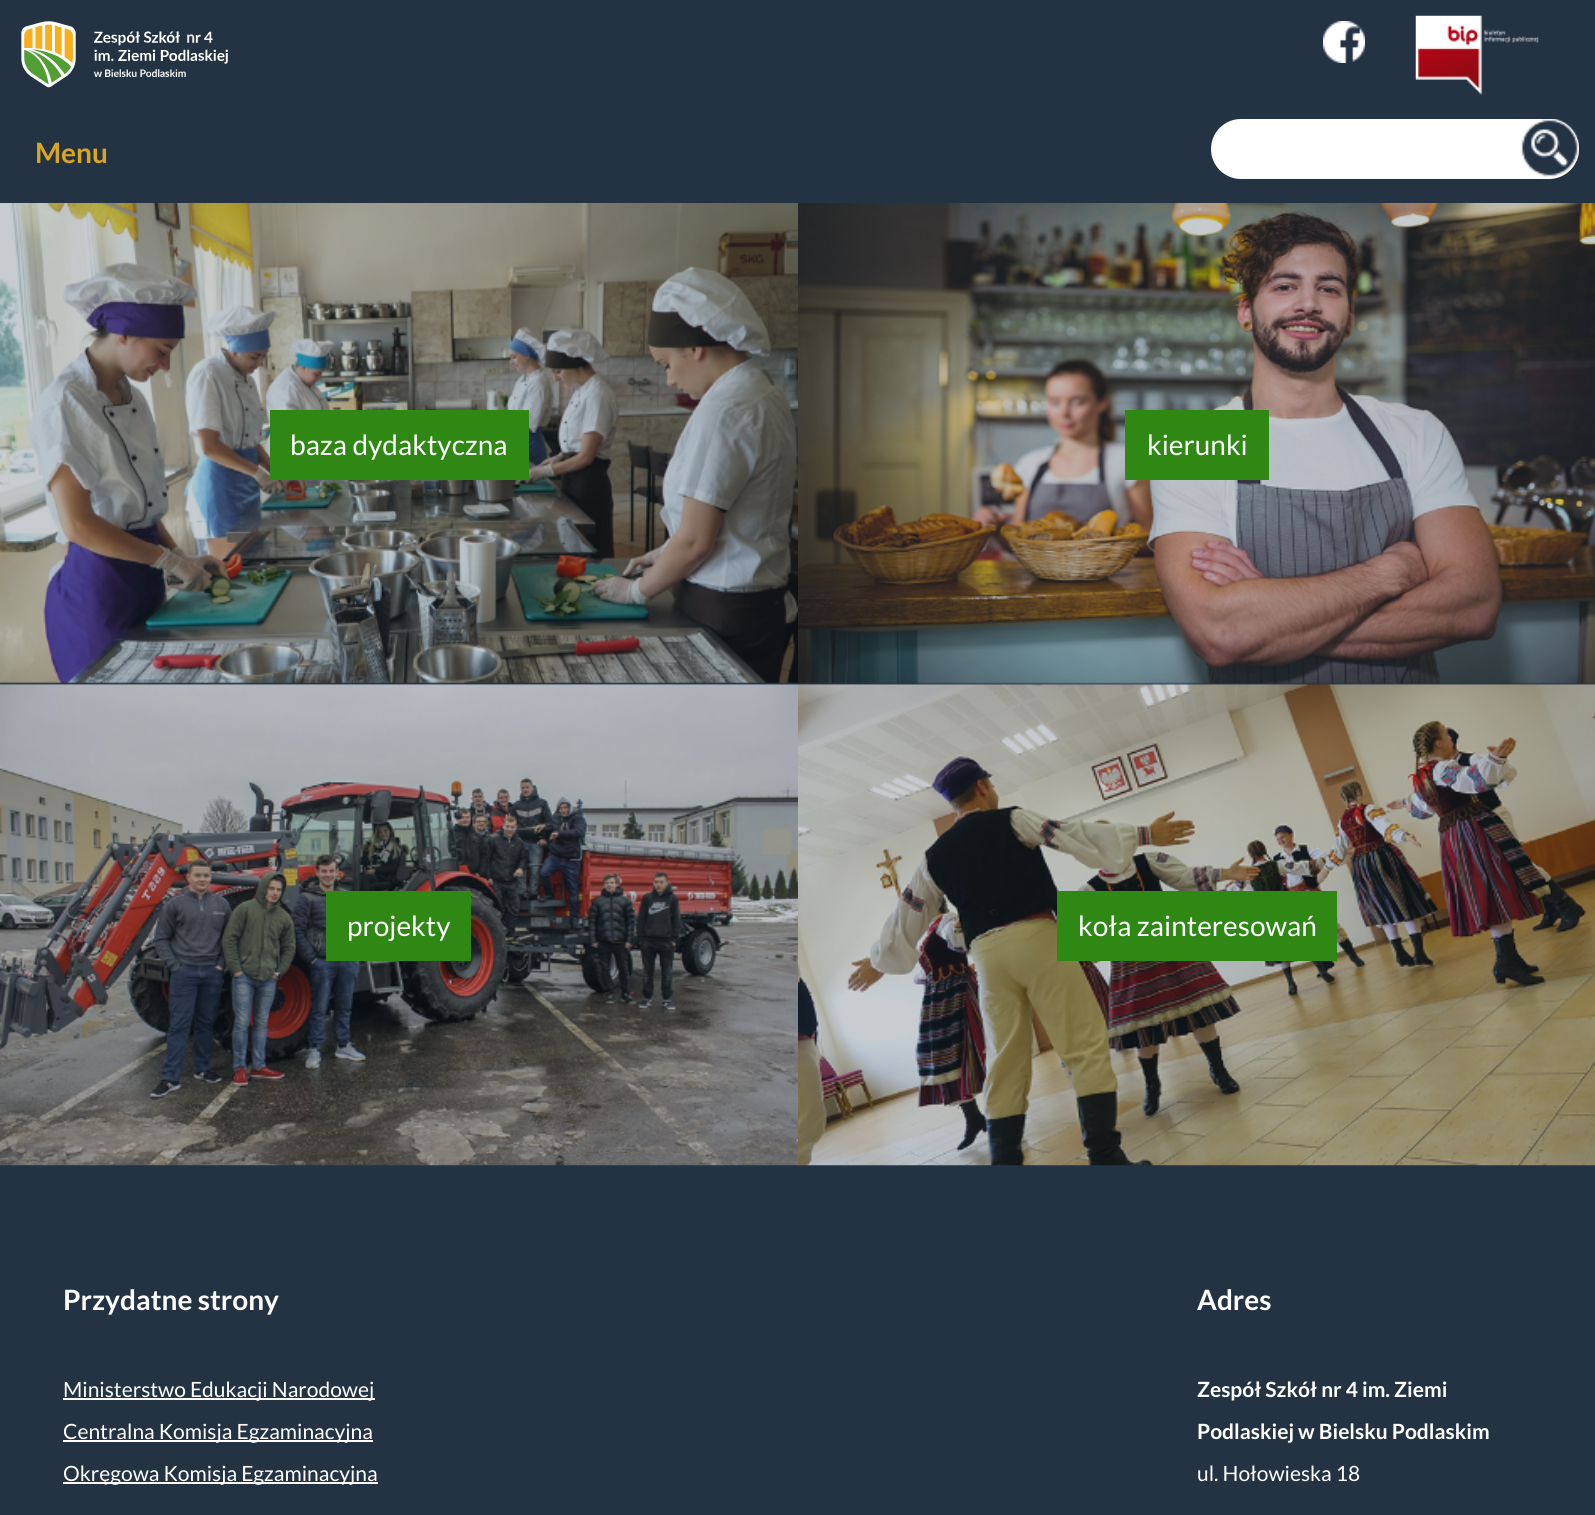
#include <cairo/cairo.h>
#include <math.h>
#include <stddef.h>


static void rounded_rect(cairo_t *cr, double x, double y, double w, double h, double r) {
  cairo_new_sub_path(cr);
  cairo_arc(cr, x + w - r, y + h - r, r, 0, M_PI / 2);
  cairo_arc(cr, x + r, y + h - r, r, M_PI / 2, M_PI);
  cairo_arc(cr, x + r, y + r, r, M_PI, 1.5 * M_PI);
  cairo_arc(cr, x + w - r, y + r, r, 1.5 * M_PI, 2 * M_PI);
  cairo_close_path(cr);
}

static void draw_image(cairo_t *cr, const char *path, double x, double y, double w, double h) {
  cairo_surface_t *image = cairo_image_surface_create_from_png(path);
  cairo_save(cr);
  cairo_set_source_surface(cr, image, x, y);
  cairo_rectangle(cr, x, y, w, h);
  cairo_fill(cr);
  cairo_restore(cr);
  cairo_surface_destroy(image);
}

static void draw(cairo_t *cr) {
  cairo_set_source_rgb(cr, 36 / 255.0, 51 / 255.0, 68 / 255.0);
  cairo_paint(cr);
  draw_image(cr, "images/1.png", 21, 21, 207, 67);
  draw_image(cr, "images/2.png", 1323, 21, 42, 42);
  draw_image(cr, "images/3.png", 1415, 15, 124, 80);
  cairo_set_source_rgb(cr, 1, 1, 1);
  rounded_rect(cr, 1212, 120, 366, 58, 29);
  cairo_fill_preserve(cr);
  cairo_stroke(cr);
  draw_image(cr, "images/4.png", 1520, 119, 59, 58);
  draw_image(cr, "images/5.png", 0, 203, 798, 481);
  cairo_set_source_rgb(cr, 47 / 255.0, 136 / 255.0, 19 / 255.0);
  cairo_rectangle(cr, 270, 410, 259, 70);
  cairo_fill(cr);
  draw_image(cr, "images/6.png", 798, 203, 797, 481);
  cairo_rectangle(cr, 1125, 410, 144, 70);
  cairo_fill(cr);
  draw_image(cr, "images/7.png", 0, 684, 798, 482);
  cairo_rectangle(cr, 326, 891, 145, 70);
  cairo_fill(cr);
  draw_image(cr, "images/8.png", 798, 684, 797, 482);
  cairo_rectangle(cr, 1057, 891, 280, 70);
  cairo_fill(cr);
  cairo_set_source_rgb(cr, 1, 1, 1);
  cairo_rectangle(cr, 63, 1398, 312, 2);
  cairo_fill(cr);
  cairo_rectangle(cr, 63, 1440, 310, 2);
  cairo_fill(cr);
  cairo_rectangle(cr, 63, 1482, 315, 2);
  cairo_fill(cr);
  cairo_select_font_face(cr, "Lato", CAIRO_FONT_SLANT_NORMAL, CAIRO_FONT_WEIGHT_BOLD);
  cairo_set_font_size(cr, 28);
  cairo_set_source_rgb(cr, 218 / 255.0, 165 / 255.0, 32 / 255.0);
  cairo_move_to(cr, 35, 163);
  cairo_show_text(cr, "Menu");
  cairo_select_font_face(cr, "Lato", CAIRO_FONT_SLANT_NORMAL, CAIRO_FONT_WEIGHT_NORMAL);
  cairo_set_source_rgb(cr, 1, 1, 1);
  cairo_move_to(cr, 290, 455);
  cairo_show_text(cr, "baza dydaktyczna");
  cairo_move_to(cr, 1147, 455);
  cairo_show_text(cr, "kierunki");
  cairo_move_to(cr, 347, 936);
  cairo_show_text(cr, "projekty");
  cairo_move_to(cr, 1078, 936);
  cairo_show_text(cr, "koła zainteresowań");
  cairo_select_font_face(cr, "Lato", CAIRO_FONT_SLANT_NORMAL, CAIRO_FONT_WEIGHT_BOLD);
  cairo_move_to(cr, 63, 1310);
  cairo_show_text(cr, "Przydatne strony");
  cairo_select_font_face(cr, "Lato", CAIRO_FONT_SLANT_NORMAL, CAIRO_FONT_WEIGHT_NORMAL);
  cairo_set_font_size(cr, 21);
  cairo_move_to(cr, 63, 1397);
  cairo_show_text(cr, "Ministerstwo Edukacji Narodowej");
  cairo_move_to(cr, 63, 1439);
  cairo_show_text(cr, "Centralna Komisja Egzaminacyjna");
  cairo_move_to(cr, 63, 1481);
  cairo_show_text(cr, "Okręgowa Komisja Egzaminacyjna");
  cairo_select_font_face(cr, "Lato", CAIRO_FONT_SLANT_NORMAL, CAIRO_FONT_WEIGHT_BOLD);
  cairo_set_font_size(cr, 28);
  cairo_move_to(cr, 1197, 1310);
  cairo_show_text(cr, "Adres");
  cairo_set_font_size(cr, 21);
  cairo_move_to(cr, 1197, 1397);
  cairo_show_text(cr, "Zespół Szkół nr 4 im. Ziemi");
  cairo_move_to(cr, 1197, 1439);
  cairo_show_text(cr, "Podlaskiej w Bielsku Podlaskim");
  cairo_select_font_face(cr, "Lato", CAIRO_FONT_SLANT_NORMAL, CAIRO_FONT_WEIGHT_NORMAL);
  cairo_move_to(cr, 1197, 1481);
  cairo_show_text(cr, "ul. Hołowieska 18");
}

int main(void) {
  cairo_surface_t *surface = cairo_image_surface_create(CAIRO_FORMAT_RGB24, 1595, 1515);
  cairo_t *cr = cairo_create(surface);
  cairo_font_options_t *options = cairo_font_options_create();
  cairo_font_options_set_hint_metrics(options, CAIRO_HINT_METRICS_OFF);
  cairo_font_options_set_hint_style(options, CAIRO_HINT_STYLE_NONE);
  cairo_set_font_options(cr, options);
  cairo_set_miter_limit(cr, 4);
  draw(cr);
  cairo_surface_write_to_png(surface, "out.png");
  cairo_font_options_destroy(options);
  cairo_destroy(cr);
  cairo_surface_destroy(surface);
  return 0;
}
